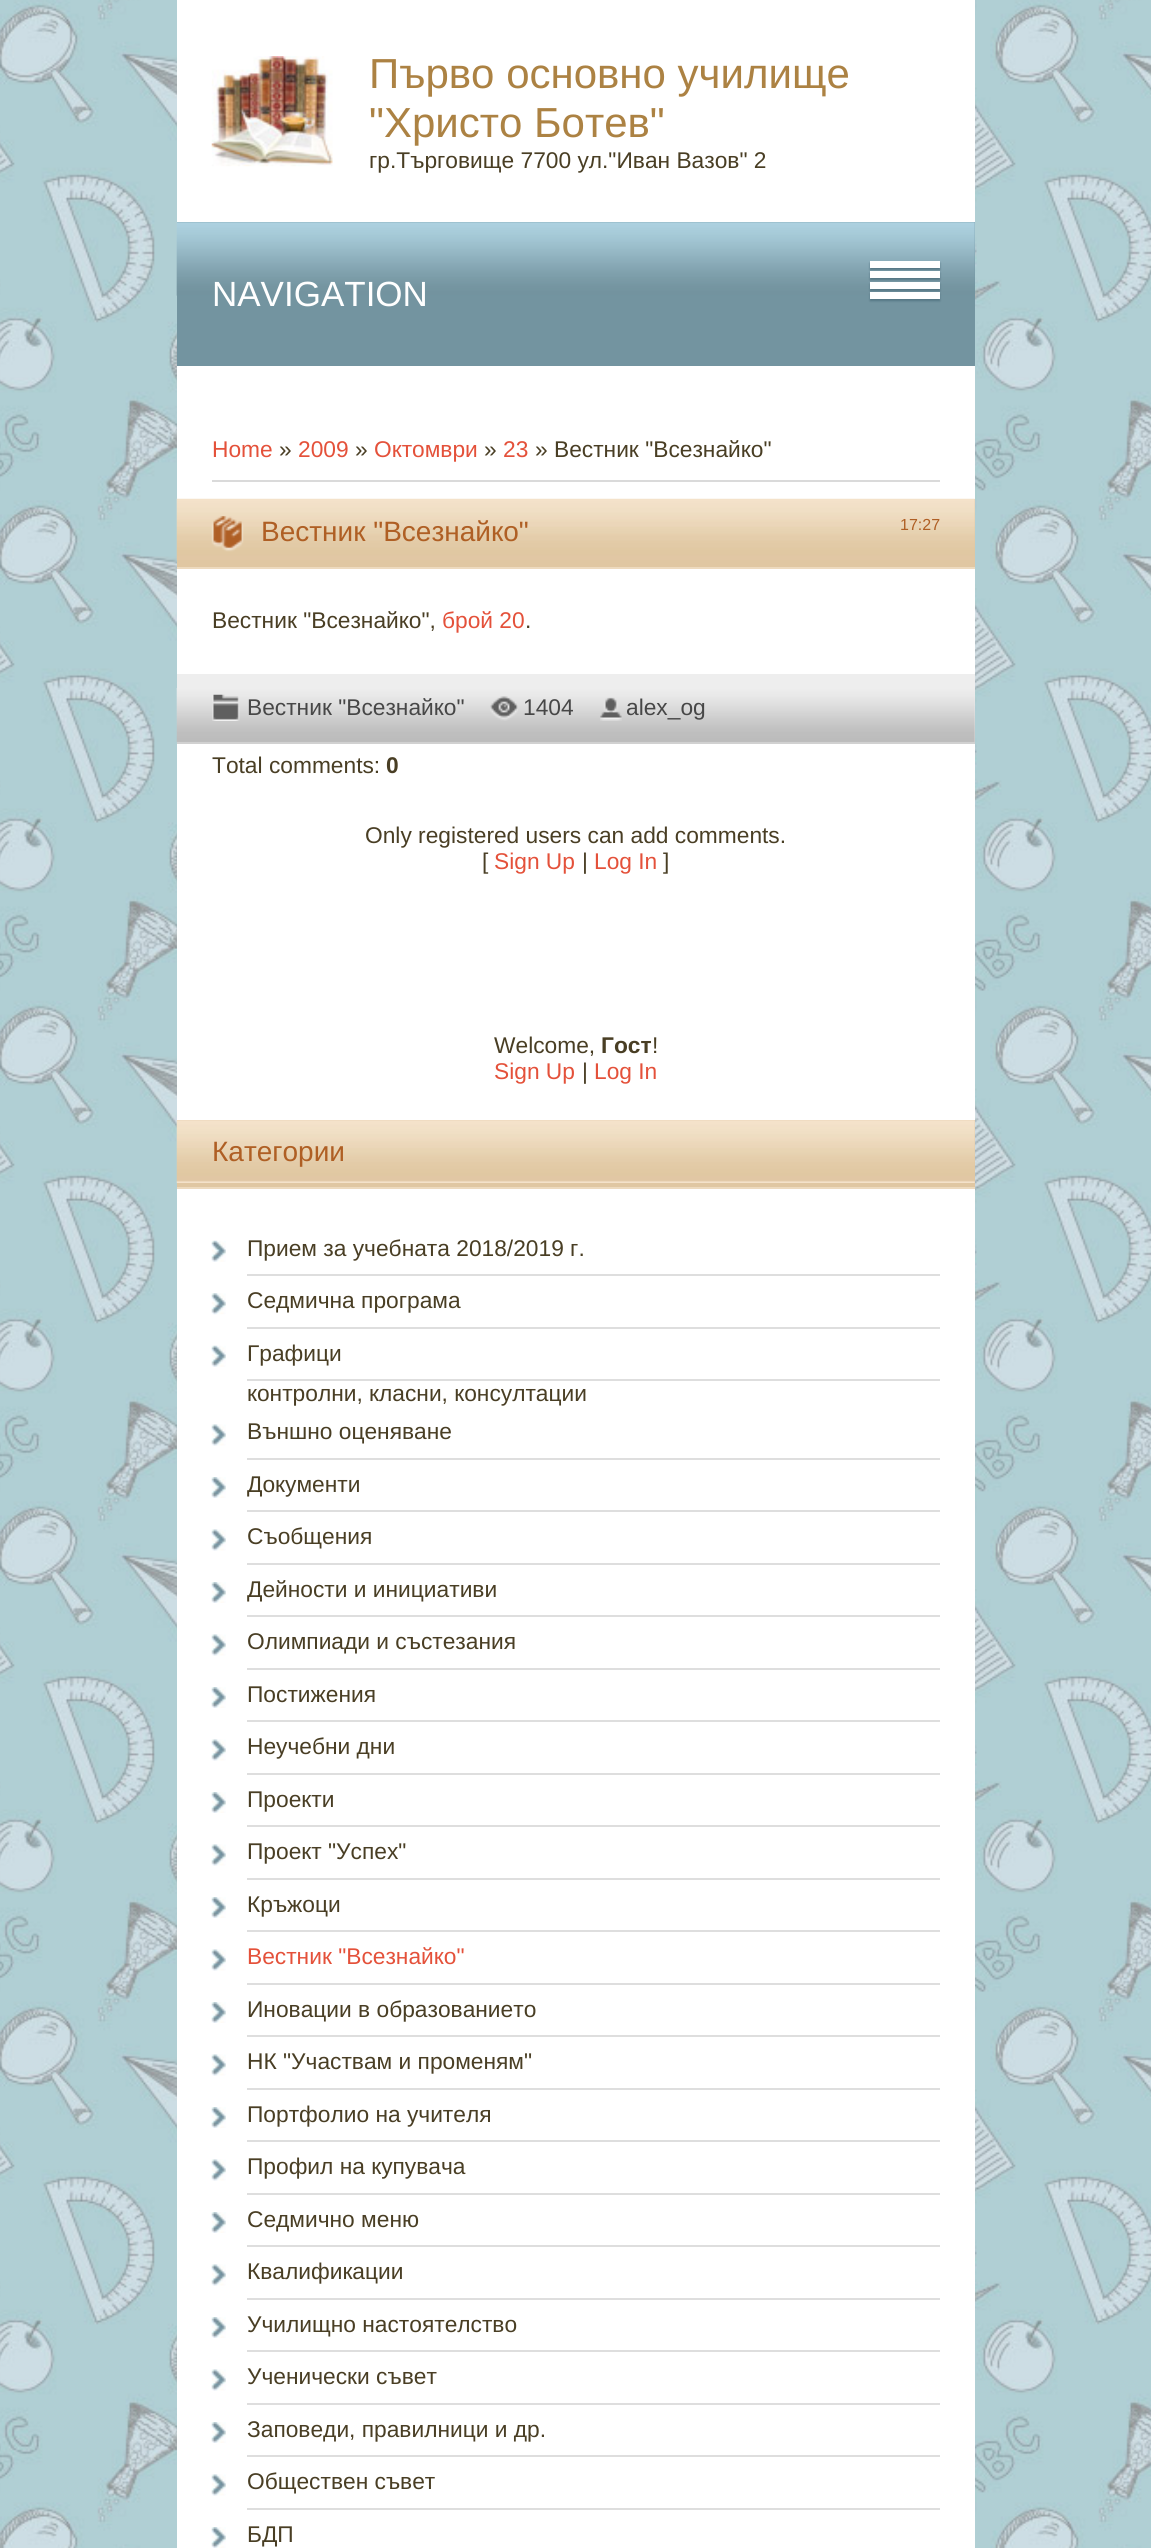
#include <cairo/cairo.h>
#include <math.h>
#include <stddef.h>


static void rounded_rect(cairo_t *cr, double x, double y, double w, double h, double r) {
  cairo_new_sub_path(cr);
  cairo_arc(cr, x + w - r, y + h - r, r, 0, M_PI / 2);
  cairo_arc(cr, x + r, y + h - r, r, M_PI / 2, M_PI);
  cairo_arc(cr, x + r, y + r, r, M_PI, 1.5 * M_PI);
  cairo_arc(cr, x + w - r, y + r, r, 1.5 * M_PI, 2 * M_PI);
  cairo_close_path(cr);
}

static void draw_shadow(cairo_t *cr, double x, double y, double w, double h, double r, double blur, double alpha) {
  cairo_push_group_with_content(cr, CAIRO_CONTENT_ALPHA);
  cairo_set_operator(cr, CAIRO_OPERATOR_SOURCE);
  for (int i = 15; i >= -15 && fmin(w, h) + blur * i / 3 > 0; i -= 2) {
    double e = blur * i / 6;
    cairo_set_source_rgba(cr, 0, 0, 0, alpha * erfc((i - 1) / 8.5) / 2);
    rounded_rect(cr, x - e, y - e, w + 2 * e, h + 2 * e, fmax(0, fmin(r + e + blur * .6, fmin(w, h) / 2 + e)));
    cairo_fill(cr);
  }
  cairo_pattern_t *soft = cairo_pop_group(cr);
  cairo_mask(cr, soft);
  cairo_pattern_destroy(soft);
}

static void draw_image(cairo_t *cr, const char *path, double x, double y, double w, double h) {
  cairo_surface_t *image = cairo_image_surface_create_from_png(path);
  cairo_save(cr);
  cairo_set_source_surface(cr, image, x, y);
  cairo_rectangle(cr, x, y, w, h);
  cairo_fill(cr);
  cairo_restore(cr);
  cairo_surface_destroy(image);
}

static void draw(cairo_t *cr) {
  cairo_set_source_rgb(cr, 1, 1, 1);
  cairo_paint(cr);
  draw_image(cr, "images/1.png", 0, 0, 1151, 2548);
  cairo_set_source_rgb(cr, 1, 1, 1);
  cairo_rectangle(cr, 177, 0, 798, 222);
  cairo_fill(cr);
  draw_image(cr, "images/2.png", 211, 56, 122, 111);
  draw_image(cr, "images/3.png", 176, 238, 1, 57);
  cairo_set_source_rgb(cr, 115 / 255.0, 148 / 255.0, 160 / 255.0);
  cairo_rectangle(cr, 177, 222, 798, 144);
  cairo_fill(cr);
  draw_image(cr, "images/4.png", 176, 222, 799, 74);
  cairo_set_source_rgb(cr, 85 / 255.0, 118 / 255.0, 132 / 255.0);
  draw_shadow(cr, 870, 263, 70, 7, 0, 1, 1);
  cairo_set_source_rgb(cr, 1, 1, 1);
  cairo_rectangle(cr, 870, 261, 70, 7);
  cairo_fill(cr);
  cairo_set_source_rgb(cr, 85 / 255.0, 118 / 255.0, 132 / 255.0);
  draw_shadow(cr, 870, 273, 70, 7, 0, 1, 1);
  cairo_set_source_rgb(cr, 1, 1, 1);
  cairo_rectangle(cr, 870, 271, 70, 7);
  cairo_fill(cr);
  cairo_set_source_rgb(cr, 85 / 255.0, 118 / 255.0, 132 / 255.0);
  draw_shadow(cr, 870, 284, 70, 7, 0, 1, 1);
  cairo_set_source_rgb(cr, 1, 1, 1);
  cairo_rectangle(cr, 870, 282, 70, 7);
  cairo_fill(cr);
  cairo_set_source_rgb(cr, 85 / 255.0, 118 / 255.0, 132 / 255.0);
  draw_shadow(cr, 870, 294, 70, 7, 0, 1, 1);
  cairo_set_source_rgb(cr, 1, 1, 1);
  cairo_rectangle(cr, 870, 292, 70, 7);
  cairo_fill(cr);
  cairo_rectangle(cr, 177, 366, 798, 2182);
  cairo_fill(cr);
  cairo_set_source_rgb(cr, 218 / 255.0, 218 / 255.0, 218 / 255.0);
  cairo_rectangle(cr, 212, 480, 728, 2);
  cairo_fill(cr);
  cairo_set_source_rgb(cr, 224 / 255.0, 199 / 255.0, 162 / 255.0);
  cairo_rectangle(cr, 177, 499, 798, 68);
  cairo_fill(cr);
  draw_image(cr, "images/5.png", 176, 498, 799, 62);
  cairo_set_source_rgb(cr, 237 / 255.0, 218 / 255.0, 190 / 255.0);
  cairo_rectangle(cr, 177, 567, 798, 2);
  cairo_fill(cr);
  draw_image(cr, "images/6.png", 211, 516, 33, 36);
  cairo_set_source_rgb(cr, 238 / 255.0, 238 / 255.0, 238 / 255.0);
  cairo_rectangle(cr, 177, 674, 798, 68);
  cairo_fill(cr);
  draw_image(cr, "images/7.png", 176, 688, 799, 54);
  cairo_set_source_rgb(cr, 209 / 255.0, 209 / 255.0, 209 / 255.0);
  cairo_rectangle(cr, 177, 742, 798, 2);
  cairo_fill(cr);
  draw_image(cr, "images/8.png", 212, 694, 28, 27);
  draw_image(cr, "images/9.png", 490, 696, 28, 25);
  draw_image(cr, "images/10.png", 600, 697, 22, 24);
  cairo_set_source_rgb(cr, 224 / 255.0, 199 / 255.0, 162 / 255.0);
  cairo_rectangle(cr, 177, 1120, 798, 67);
  cairo_fill(cr);
  draw_image(cr, "images/11.png", 176, 1120, 799, 63);
  cairo_set_source_rgb(cr, 237 / 255.0, 218 / 255.0, 190 / 255.0);
  cairo_rectangle(cr, 177, 1187, 798, 2);
  cairo_fill(cr);
  draw_image(cr, "images/12.png", 211, 1240, 15, 22);
  cairo_set_source_rgb(cr, 222 / 255.0, 222 / 255.0, 222 / 255.0);
  cairo_rectangle(cr, 247, 1274, 693, 2);
  cairo_fill(cr);
  draw_image(cr, "images/13.png", 211, 1293, 15, 22);
  cairo_rectangle(cr, 247, 1327, 693, 2);
  cairo_fill(cr);
  draw_image(cr, "images/12.png", 211, 1345, 15, 22);
  cairo_rectangle(cr, 247, 1379, 693, 2);
  cairo_fill(cr);
  draw_image(cr, "images/14.png", 211, 1424, 15, 22);
  cairo_rectangle(cr, 247, 1458, 693, 2);
  cairo_fill(cr);
  draw_image(cr, "images/15.png", 211, 1477, 15, 21);
  cairo_rectangle(cr, 247, 1510, 693, 2);
  cairo_fill(cr);
  draw_image(cr, "images/14.png", 211, 1529, 15, 22);
  cairo_rectangle(cr, 247, 1563, 693, 2);
  cairo_fill(cr);
  draw_image(cr, "images/15.png", 211, 1582, 15, 21);
  cairo_rectangle(cr, 247, 1615, 693, 2);
  cairo_fill(cr);
  draw_image(cr, "images/14.png", 211, 1634, 15, 22);
  cairo_rectangle(cr, 247, 1668, 693, 2);
  cairo_fill(cr);
  draw_image(cr, "images/15.png", 211, 1687, 15, 21);
  cairo_rectangle(cr, 247, 1720, 693, 2);
  cairo_fill(cr);
  draw_image(cr, "images/14.png", 211, 1739, 15, 22);
  cairo_rectangle(cr, 247, 1773, 693, 2);
  cairo_fill(cr);
  draw_image(cr, "images/15.png", 211, 1792, 15, 21);
  cairo_rectangle(cr, 247, 1825, 693, 2);
  cairo_fill(cr);
  draw_image(cr, "images/14.png", 211, 1844, 15, 22);
  cairo_rectangle(cr, 247, 1878, 693, 2);
  cairo_fill(cr);
  draw_image(cr, "images/15.png", 211, 1897, 15, 21);
  cairo_rectangle(cr, 247, 1930, 693, 2);
  cairo_fill(cr);
  draw_image(cr, "images/14.png", 211, 1949, 15, 22);
  cairo_rectangle(cr, 247, 1983, 693, 2);
  cairo_fill(cr);
  draw_image(cr, "images/15.png", 211, 2002, 15, 21);
  cairo_rectangle(cr, 247, 2035, 693, 2);
  cairo_fill(cr);
  draw_image(cr, "images/14.png", 211, 2054, 15, 22);
  cairo_rectangle(cr, 247, 2088, 693, 2);
  cairo_fill(cr);
  draw_image(cr, "images/15.png", 211, 2107, 15, 21);
  cairo_rectangle(cr, 247, 2140, 693, 2);
  cairo_fill(cr);
  draw_image(cr, "images/14.png", 211, 2159, 15, 22);
  cairo_rectangle(cr, 247, 2193, 693, 2);
  cairo_fill(cr);
  draw_image(cr, "images/15.png", 211, 2212, 15, 21);
  cairo_rectangle(cr, 247, 2245, 693, 2);
  cairo_fill(cr);
  draw_image(cr, "images/14.png", 211, 2264, 15, 22);
  cairo_rectangle(cr, 247, 2298, 693, 2);
  cairo_fill(cr);
  draw_image(cr, "images/15.png", 211, 2317, 15, 21);
  cairo_rectangle(cr, 247, 2350, 693, 2);
  cairo_fill(cr);
  draw_image(cr, "images/14.png", 211, 2369, 15, 22);
  cairo_rectangle(cr, 247, 2403, 693, 2);
  cairo_fill(cr);
  draw_image(cr, "images/15.png", 211, 2422, 15, 21);
  cairo_rectangle(cr, 247, 2455, 693, 2);
  cairo_fill(cr);
  draw_image(cr, "images/14.png", 211, 2474, 15, 22);
  cairo_rectangle(cr, 247, 2508, 693, 2);
  cairo_fill(cr);
  draw_image(cr, "images/15.png", 211, 2527, 15, 21);
  cairo_select_font_face(cr, "Liberation Sans", CAIRO_FONT_SLANT_NORMAL, CAIRO_FONT_WEIGHT_NORMAL);
  cairo_set_font_size(cr, 42);
  cairo_set_source_rgb(cr, 172 / 255.0, 130 / 255.0, 67 / 255.0);
  cairo_move_to(cr, 369, 88);
  cairo_show_text(cr, "Първо основно училище");
  cairo_move_to(cr, 369, 137);
  cairo_show_text(cr, "\"Христо Ботев\"");
  cairo_set_font_size(cr, 22.75);
  cairo_set_source_rgb(cr, 73 / 255.0, 62 / 255.0, 36 / 255.0);
  cairo_move_to(cr, 369, 168);
  cairo_show_text(cr, "гр.Търговище 7700 ул.\"Иван Вазов\" 2");
  cairo_set_font_size(cr, 35);
  cairo_set_source_rgb(cr, 1, 1, 1);
  cairo_move_to(cr, 212, 306);
  cairo_show_text(cr, "NAVIGATION");
  cairo_set_font_size(cr, 22.75);
  cairo_set_source_rgb(cr, 228 / 255.0, 81 / 255.0, 58 / 255.0);
  cairo_move_to(cr, 212, 457);
  cairo_show_text(cr, "Home");
  cairo_set_source_rgb(cr, 73 / 255.0, 62 / 255.0, 36 / 255.0);
  cairo_move_to(cr, 279, 457);
  cairo_show_text(cr, "»");
  cairo_set_source_rgb(cr, 228 / 255.0, 81 / 255.0, 58 / 255.0);
  cairo_move_to(cr, 298, 457);
  cairo_show_text(cr, "2009");
  cairo_set_source_rgb(cr, 73 / 255.0, 62 / 255.0, 36 / 255.0);
  cairo_move_to(cr, 355, 457);
  cairo_show_text(cr, "»");
  cairo_set_source_rgb(cr, 228 / 255.0, 81 / 255.0, 58 / 255.0);
  cairo_move_to(cr, 374, 457);
  cairo_show_text(cr, "Октомври");
  cairo_set_source_rgb(cr, 73 / 255.0, 62 / 255.0, 36 / 255.0);
  cairo_move_to(cr, 484, 457);
  cairo_show_text(cr, "»");
  cairo_set_source_rgb(cr, 228 / 255.0, 81 / 255.0, 58 / 255.0);
  cairo_move_to(cr, 503, 457);
  cairo_show_text(cr, "23");
  cairo_set_source_rgb(cr, 73 / 255.0, 62 / 255.0, 36 / 255.0);
  cairo_move_to(cr, 535, 457);
  cairo_show_text(cr, "» Вестник \"Всезнайко\"");
  cairo_set_font_size(cr, 28);
  cairo_set_source_rgb(cr, 175 / 255.0, 95 / 255.0, 36 / 255.0);
  cairo_move_to(cr, 261, 541);
  cairo_show_text(cr, "Вестник \"Всезнайко\"");
  cairo_set_font_size(cr, 16);
  cairo_move_to(cr, 900, 530);
  cairo_show_text(cr, "17:27");
  cairo_set_font_size(cr, 22.75);
  cairo_set_source_rgb(cr, 73 / 255.0, 62 / 255.0, 36 / 255.0);
  cairo_move_to(cr, 212, 628);
  cairo_show_text(cr, "Вестник \"Всезнайко\",");
  cairo_set_source_rgb(cr, 228 / 255.0, 81 / 255.0, 58 / 255.0);
  cairo_move_to(cr, 442, 628);
  cairo_show_text(cr, "брой 20");
  cairo_set_source_rgb(cr, 73 / 255.0, 62 / 255.0, 36 / 255.0);
  cairo_move_to(cr, 525, 628);
  cairo_show_text(cr, ".");
  cairo_set_source_rgb(cr, 71 / 255.0, 71 / 255.0, 71 / 255.0);
  cairo_move_to(cr, 247, 715);
  cairo_show_text(cr, "Вестник \"Всезнайко\"");
  cairo_move_to(cr, 523, 715);
  cairo_show_text(cr, "1404");
  cairo_move_to(cr, 626, 715);
  cairo_show_text(cr, "alex_og");
  cairo_set_source_rgb(cr, 73 / 255.0, 62 / 255.0, 36 / 255.0);
  cairo_move_to(cr, 212, 773);
  cairo_show_text(cr, "Total comments:");
  cairo_select_font_face(cr, "Liberation Sans", CAIRO_FONT_SLANT_NORMAL, CAIRO_FONT_WEIGHT_BOLD);
  cairo_move_to(cr, 386, 773);
  cairo_show_text(cr, "0");
  cairo_select_font_face(cr, "Liberation Sans", CAIRO_FONT_SLANT_NORMAL, CAIRO_FONT_WEIGHT_NORMAL);
  cairo_move_to(cr, 365, 843);
  cairo_show_text(cr, "Only registered users can add comments.");
  cairo_move_to(cr, 482, 869);
  cairo_show_text(cr, "[");
  cairo_set_source_rgb(cr, 228 / 255.0, 81 / 255.0, 58 / 255.0);
  cairo_move_to(cr, 494, 869);
  cairo_show_text(cr, "Sign Up");
  cairo_set_source_rgb(cr, 73 / 255.0, 62 / 255.0, 36 / 255.0);
  cairo_move_to(cr, 582, 869);
  cairo_show_text(cr, "|");
  cairo_set_source_rgb(cr, 228 / 255.0, 81 / 255.0, 58 / 255.0);
  cairo_move_to(cr, 594, 869);
  cairo_show_text(cr, "Log In");
  cairo_set_source_rgb(cr, 73 / 255.0, 62 / 255.0, 36 / 255.0);
  cairo_move_to(cr, 663, 869);
  cairo_show_text(cr, "]");
  cairo_move_to(cr, 494, 1053);
  cairo_show_text(cr, "Welcome,");
  cairo_select_font_face(cr, "Liberation Sans", CAIRO_FONT_SLANT_NORMAL, CAIRO_FONT_WEIGHT_BOLD);
  cairo_move_to(cr, 601, 1053);
  cairo_show_text(cr, "Гост");
  cairo_select_font_face(cr, "Liberation Sans", CAIRO_FONT_SLANT_NORMAL, CAIRO_FONT_WEIGHT_NORMAL);
  cairo_move_to(cr, 652, 1053);
  cairo_show_text(cr, "!");
  cairo_set_source_rgb(cr, 228 / 255.0, 81 / 255.0, 58 / 255.0);
  cairo_move_to(cr, 494, 1079);
  cairo_show_text(cr, "Sign Up");
  cairo_set_source_rgb(cr, 73 / 255.0, 62 / 255.0, 36 / 255.0);
  cairo_move_to(cr, 582, 1079);
  cairo_show_text(cr, "|");
  cairo_set_source_rgb(cr, 228 / 255.0, 81 / 255.0, 58 / 255.0);
  cairo_move_to(cr, 594, 1079);
  cairo_show_text(cr, "Log In");
  cairo_set_font_size(cr, 28);
  cairo_set_source_rgb(cr, 175 / 255.0, 95 / 255.0, 36 / 255.0);
  cairo_move_to(cr, 212, 1161);
  cairo_show_text(cr, "Категории");
  cairo_set_font_size(cr, 22.75);
  cairo_set_source_rgb(cr, 73 / 255.0, 62 / 255.0, 36 / 255.0);
  cairo_move_to(cr, 247, 1256);
  cairo_show_text(cr, "Прием за учебната 2018/2019 г.");
  cairo_move_to(cr, 247, 1308);
  cairo_show_text(cr, "Седмична програма");
  cairo_move_to(cr, 247, 1361);
  cairo_show_text(cr, "Графици");
  cairo_move_to(cr, 247, 1401);
  cairo_show_text(cr, "контролни, класни, консултации");
  cairo_move_to(cr, 247, 1439);
  cairo_show_text(cr, "Външно оценяване");
  cairo_move_to(cr, 247, 1492);
  cairo_show_text(cr, "Документи");
  cairo_move_to(cr, 247, 1544);
  cairo_show_text(cr, "Съобщения");
  cairo_move_to(cr, 247, 1597);
  cairo_show_text(cr, "Дейности и инициативи");
  cairo_move_to(cr, 247, 1649);
  cairo_show_text(cr, "Олимпиади и състезания");
  cairo_move_to(cr, 247, 1702);
  cairo_show_text(cr, "Постижения");
  cairo_move_to(cr, 247, 1754);
  cairo_show_text(cr, "Неучебни дни");
  cairo_move_to(cr, 247, 1807);
  cairo_show_text(cr, "Проекти");
  cairo_move_to(cr, 247, 1859);
  cairo_show_text(cr, "Проект \"Успех\"");
  cairo_move_to(cr, 247, 1912);
  cairo_show_text(cr, "Кръжоци");
  cairo_set_source_rgb(cr, 228 / 255.0, 81 / 255.0, 58 / 255.0);
  cairo_move_to(cr, 247, 1964);
  cairo_show_text(cr, "Вестник \"Всезнайко\"");
  cairo_set_source_rgb(cr, 73 / 255.0, 62 / 255.0, 36 / 255.0);
  cairo_move_to(cr, 247, 2017);
  cairo_show_text(cr, "Иновации в образованието");
  cairo_move_to(cr, 247, 2069);
  cairo_show_text(cr, "НК \"Участвам и променям\"");
  cairo_move_to(cr, 247, 2122);
  cairo_show_text(cr, "Портфолио на учителя");
  cairo_move_to(cr, 247, 2174);
  cairo_show_text(cr, "Профил на купувача");
  cairo_move_to(cr, 247, 2227);
  cairo_show_text(cr, "Седмично меню");
  cairo_move_to(cr, 247, 2279);
  cairo_show_text(cr, "Квалификации");
  cairo_move_to(cr, 247, 2332);
  cairo_show_text(cr, "Училищно настоятелство");
  cairo_move_to(cr, 247, 2384);
  cairo_show_text(cr, "Ученически съвет");
  cairo_move_to(cr, 247, 2437);
  cairo_show_text(cr, "Заповеди, правилници и др.");
  cairo_move_to(cr, 247, 2489);
  cairo_show_text(cr, "Обществен съвет");
  cairo_move_to(cr, 247, 2542);
  cairo_show_text(cr, "БДП");
}

int main(void) {
  cairo_surface_t *surface = cairo_image_surface_create(CAIRO_FORMAT_RGB24, 1151, 2548);
  cairo_t *cr = cairo_create(surface);
  cairo_font_options_t *options = cairo_font_options_create();
  cairo_font_options_set_hint_metrics(options, CAIRO_HINT_METRICS_OFF);
  cairo_font_options_set_hint_style(options, CAIRO_HINT_STYLE_NONE);
  cairo_set_font_options(cr, options);
  cairo_set_miter_limit(cr, 4);
  draw(cr);
  cairo_surface_write_to_png(surface, "out.png");
  cairo_font_options_destroy(options);
  cairo_destroy(cr);
  cairo_surface_destroy(surface);
  return 0;
}
